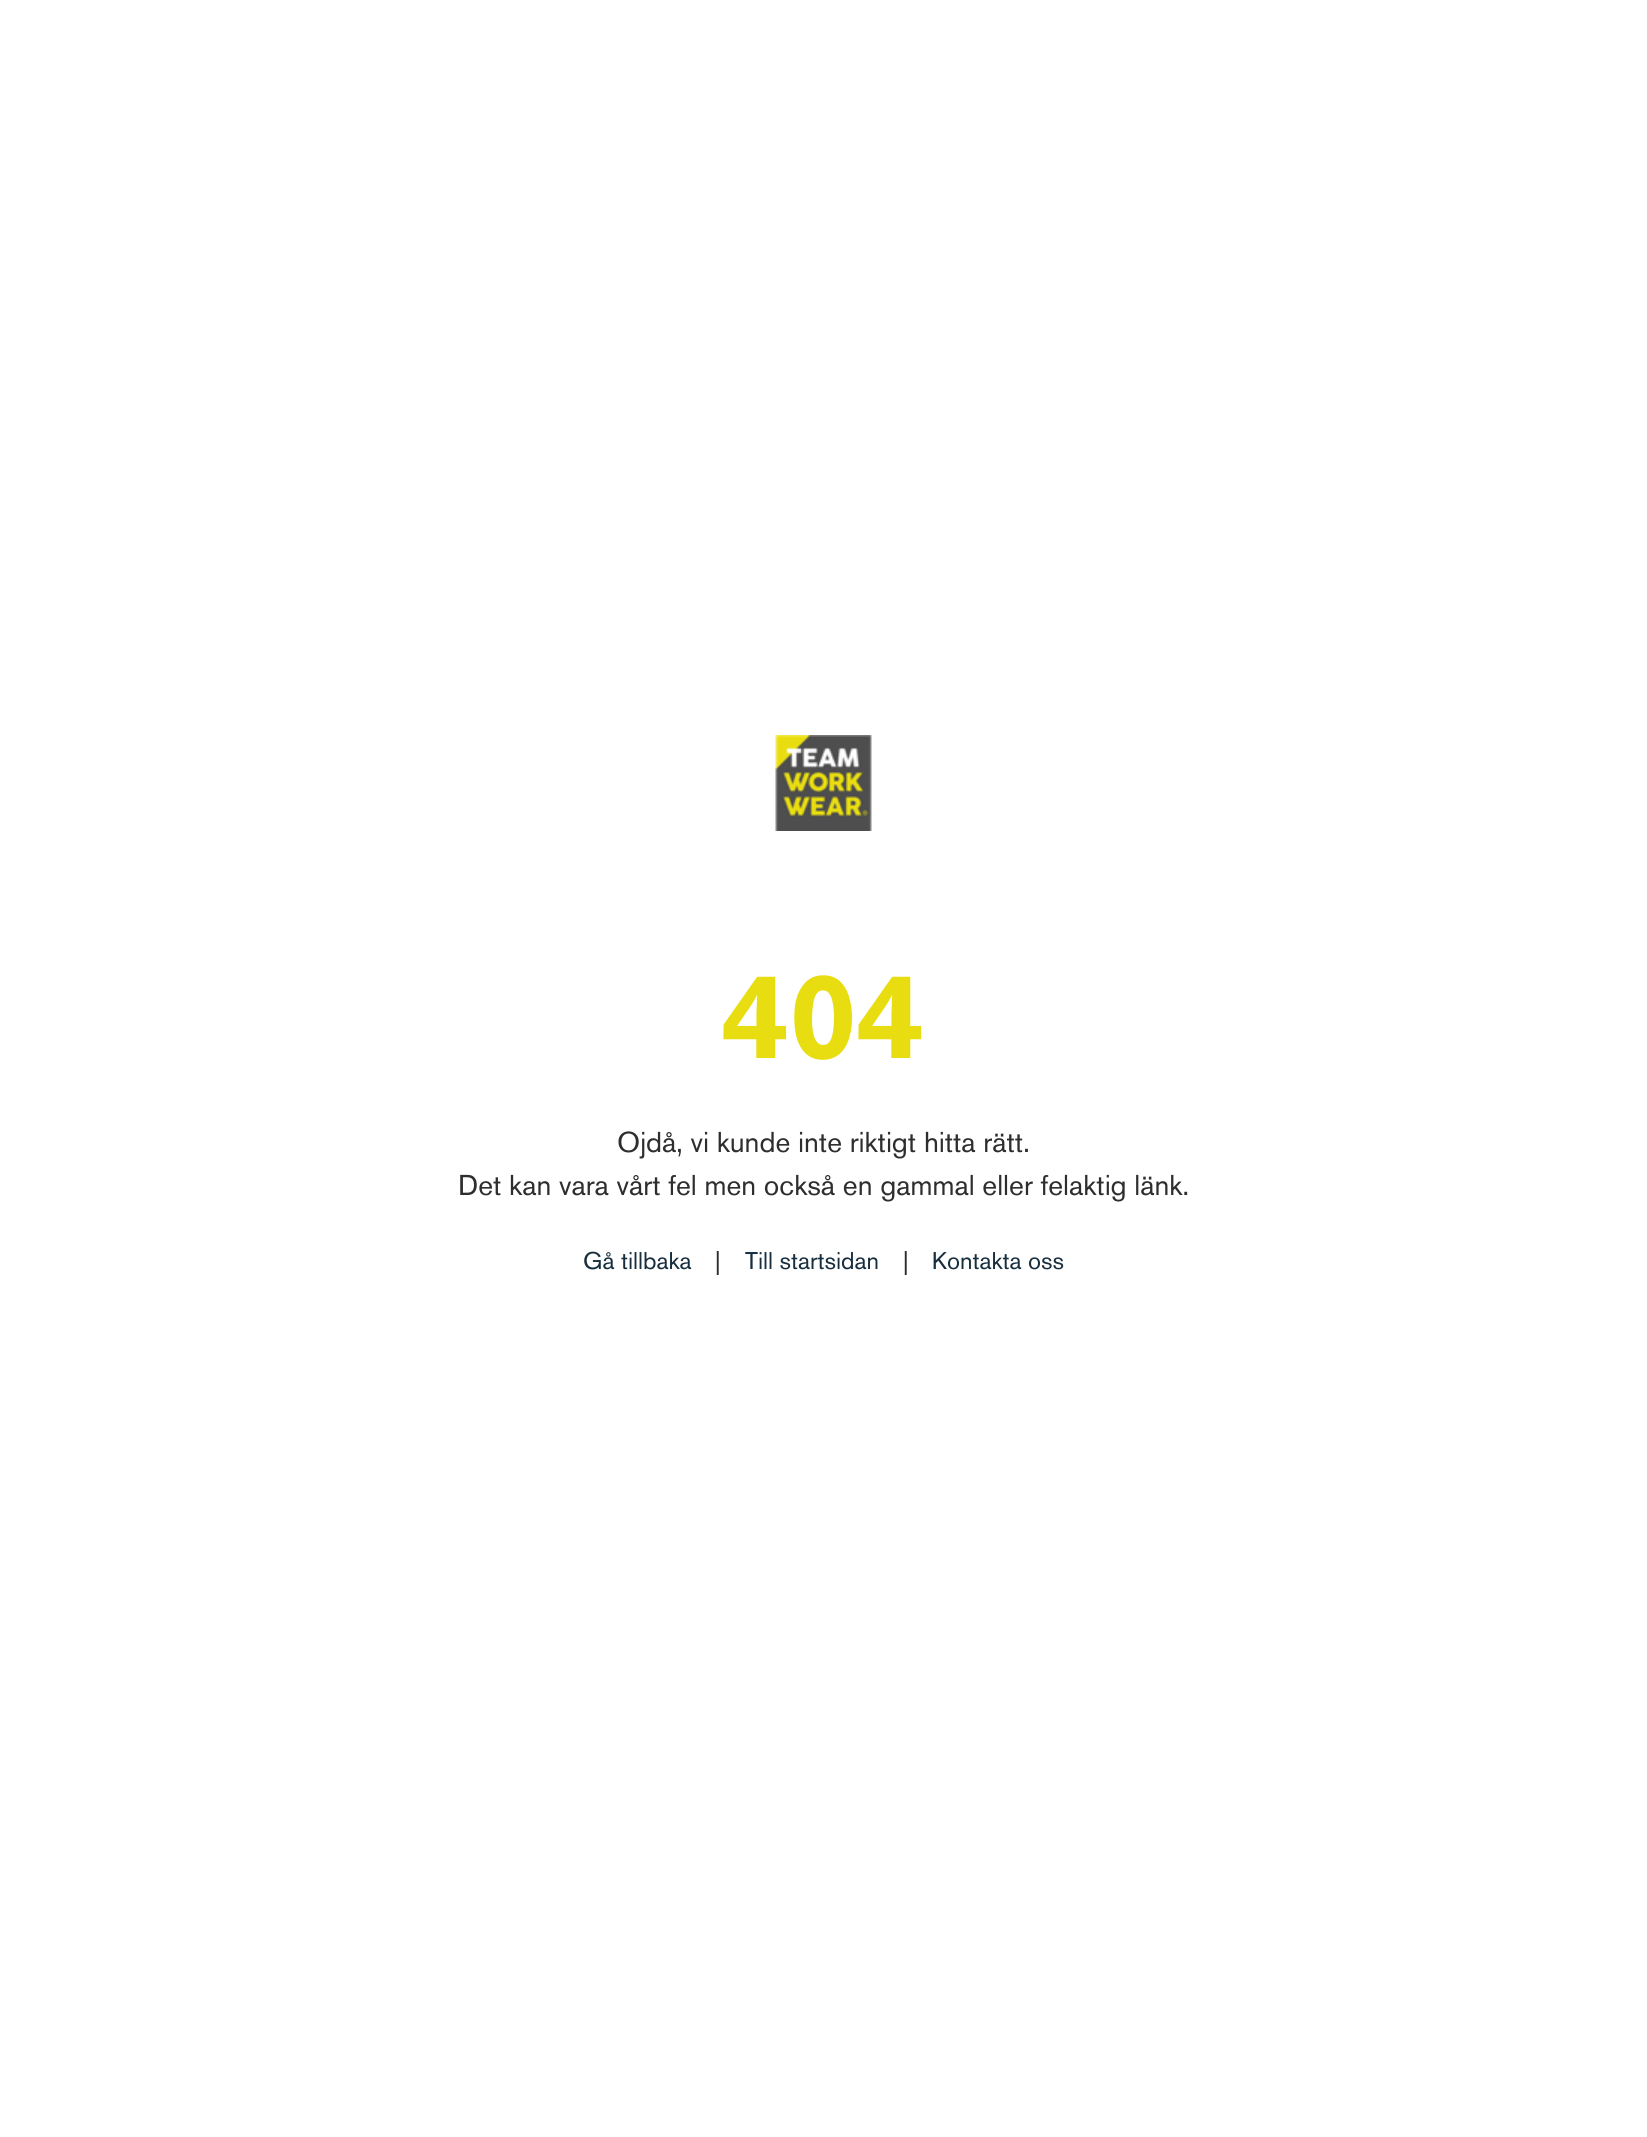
#include <cairo/cairo.h>
#include <math.h>
#include <stddef.h>


static void draw_image(cairo_t *cr, const char *path, double x, double y, double w, double h) {
  cairo_surface_t *image = cairo_image_surface_create_from_png(path);
  cairo_save(cr);
  cairo_set_source_surface(cr, image, x, y);
  cairo_rectangle(cr, x, y, w, h);
  cairo_fill(cr);
  cairo_restore(cr);
  cairo_surface_destroy(image);
}

static void draw(cairo_t *cr) {
  cairo_set_source_rgb(cr, 1, 1, 1);
  cairo_paint(cr);
  draw_image(cr, "images/1.png", 775, 735, 97, 96);
  cairo_select_font_face(cr, "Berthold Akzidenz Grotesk", CAIRO_FONT_SLANT_NORMAL, CAIRO_FONT_WEIGHT_BOLD);
  cairo_set_font_size(cr, 120);
  cairo_set_source_rgb(cr, 232 / 255.0, 221 / 255.0, 17 / 255.0);
  cairo_move_to(cr, 722, 1058);
  cairo_show_text(cr, "404");
  cairo_select_font_face(cr, "Berthold Akzidenz Grotesk", CAIRO_FONT_SLANT_NORMAL, CAIRO_FONT_WEIGHT_NORMAL);
  cairo_set_font_size(cr, 28.5);
  cairo_set_source_rgb(cr, 46 / 255.0, 46 / 255.0, 46 / 255.0);
  cairo_move_to(cr, 617, 1152);
  cairo_show_text(cr, "Ojdå, vi kunde inte riktigt hitta rätt.");
  cairo_move_to(cr, 458, 1195);
  cairo_show_text(cr, "Det kan vara vårt fel men också en gammal eller felaktig länk.");
  cairo_set_font_size(cr, 24);
  cairo_set_source_rgb(cr, 23 / 255.0, 46 / 255.0, 62 / 255.0);
  cairo_move_to(cr, 583, 1269);
  cairo_show_text(cr, "Gå tillbaka");
  cairo_set_source_rgb(cr, 46 / 255.0, 46 / 255.0, 46 / 255.0);
  cairo_move_to(cr, 715, 1269);
  cairo_show_text(cr, "|");
  cairo_set_source_rgb(cr, 23 / 255.0, 46 / 255.0, 62 / 255.0);
  cairo_move_to(cr, 745, 1269);
  cairo_show_text(cr, "Till startsidan");
  cairo_set_source_rgb(cr, 46 / 255.0, 46 / 255.0, 46 / 255.0);
  cairo_move_to(cr, 903, 1269);
  cairo_show_text(cr, "|");
  cairo_set_source_rgb(cr, 23 / 255.0, 46 / 255.0, 62 / 255.0);
  cairo_move_to(cr, 932, 1269);
  cairo_show_text(cr, "Kontakta oss");
}

int main(void) {
  cairo_surface_t *surface = cairo_image_surface_create(CAIRO_FORMAT_RGB24, 1647, 2137);
  cairo_t *cr = cairo_create(surface);
  cairo_font_options_t *options = cairo_font_options_create();
  cairo_font_options_set_hint_metrics(options, CAIRO_HINT_METRICS_OFF);
  cairo_font_options_set_hint_style(options, CAIRO_HINT_STYLE_NONE);
  cairo_set_font_options(cr, options);
  cairo_set_miter_limit(cr, 4);
  draw(cr);
  cairo_surface_write_to_png(surface, "out.png");
  cairo_font_options_destroy(options);
  cairo_destroy(cr);
  cairo_surface_destroy(surface);
  return 0;
}
